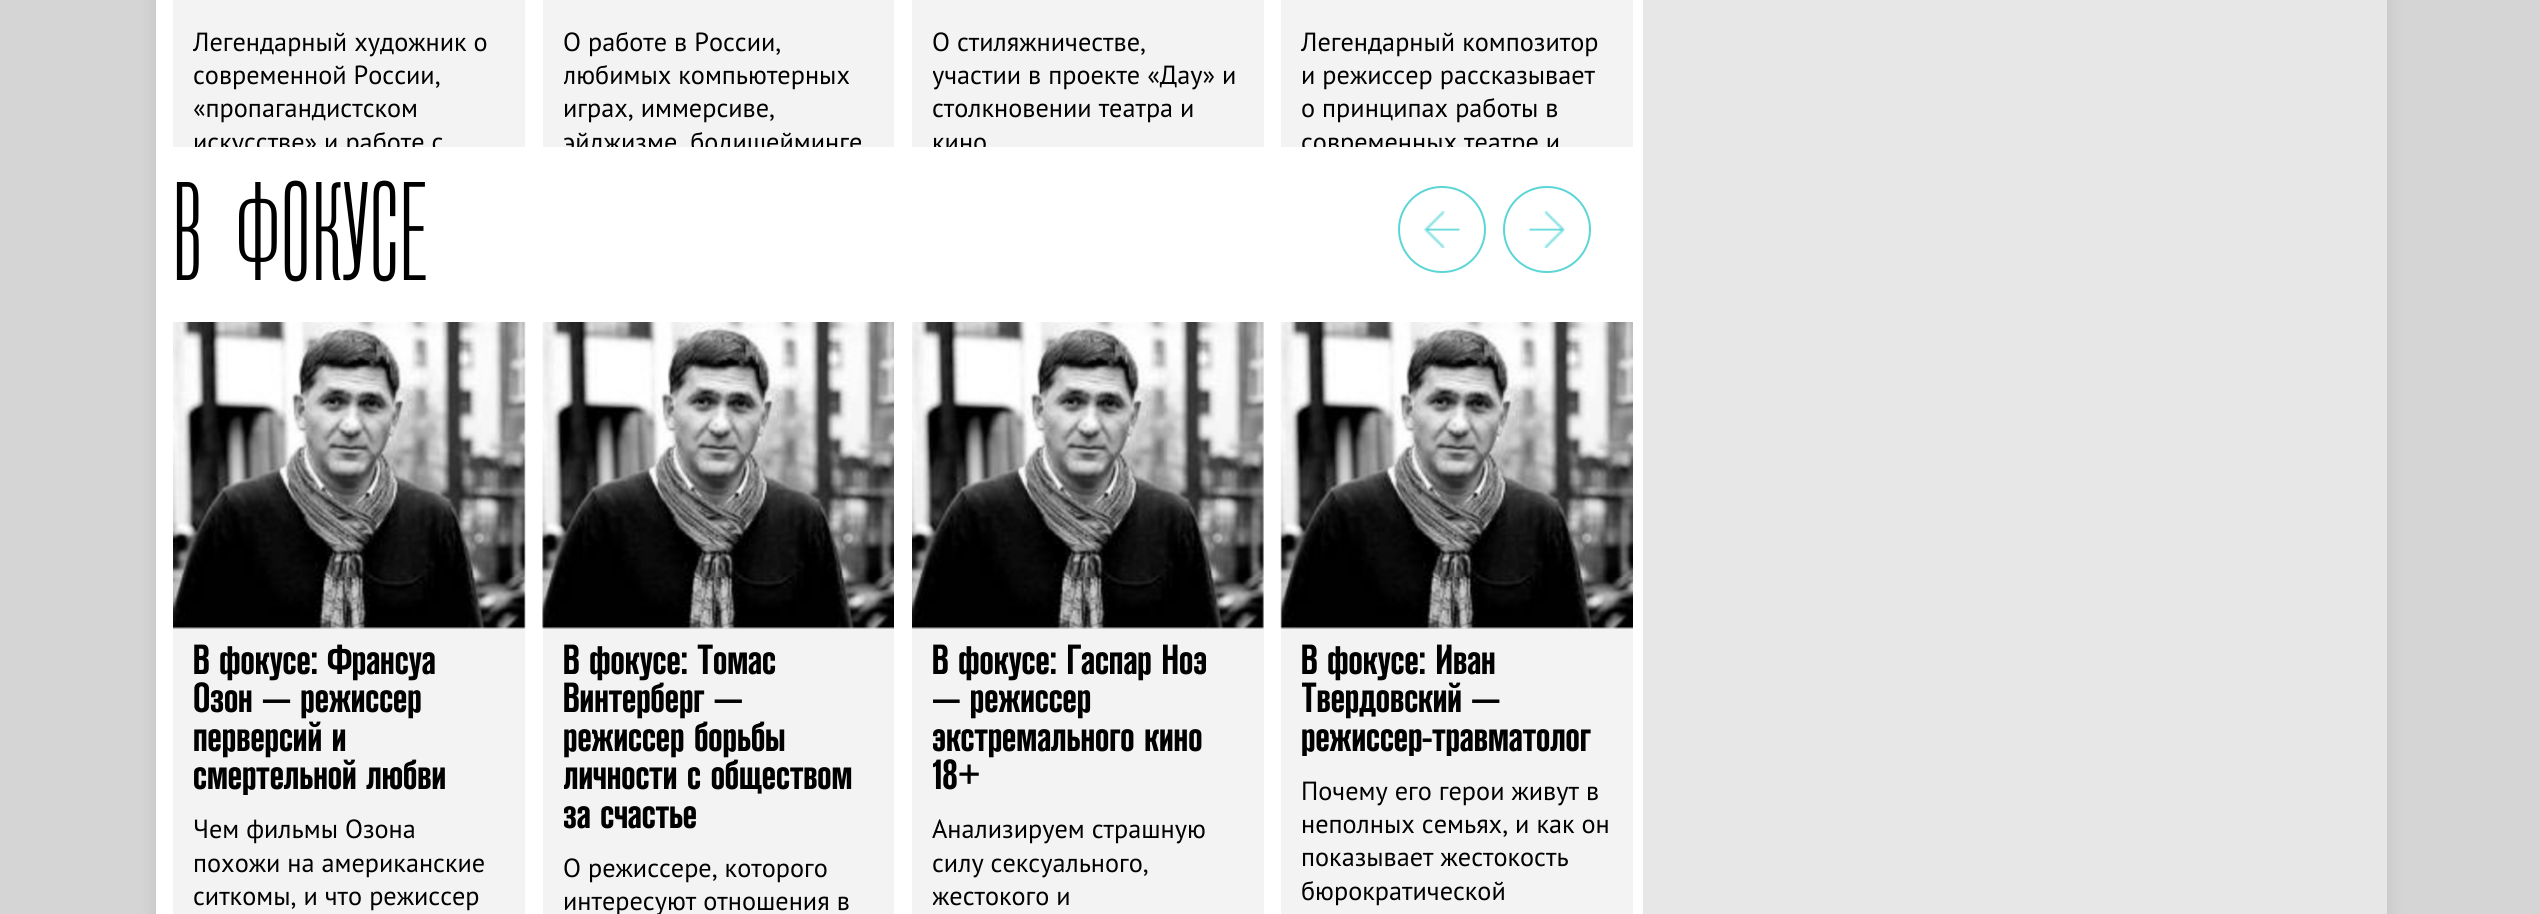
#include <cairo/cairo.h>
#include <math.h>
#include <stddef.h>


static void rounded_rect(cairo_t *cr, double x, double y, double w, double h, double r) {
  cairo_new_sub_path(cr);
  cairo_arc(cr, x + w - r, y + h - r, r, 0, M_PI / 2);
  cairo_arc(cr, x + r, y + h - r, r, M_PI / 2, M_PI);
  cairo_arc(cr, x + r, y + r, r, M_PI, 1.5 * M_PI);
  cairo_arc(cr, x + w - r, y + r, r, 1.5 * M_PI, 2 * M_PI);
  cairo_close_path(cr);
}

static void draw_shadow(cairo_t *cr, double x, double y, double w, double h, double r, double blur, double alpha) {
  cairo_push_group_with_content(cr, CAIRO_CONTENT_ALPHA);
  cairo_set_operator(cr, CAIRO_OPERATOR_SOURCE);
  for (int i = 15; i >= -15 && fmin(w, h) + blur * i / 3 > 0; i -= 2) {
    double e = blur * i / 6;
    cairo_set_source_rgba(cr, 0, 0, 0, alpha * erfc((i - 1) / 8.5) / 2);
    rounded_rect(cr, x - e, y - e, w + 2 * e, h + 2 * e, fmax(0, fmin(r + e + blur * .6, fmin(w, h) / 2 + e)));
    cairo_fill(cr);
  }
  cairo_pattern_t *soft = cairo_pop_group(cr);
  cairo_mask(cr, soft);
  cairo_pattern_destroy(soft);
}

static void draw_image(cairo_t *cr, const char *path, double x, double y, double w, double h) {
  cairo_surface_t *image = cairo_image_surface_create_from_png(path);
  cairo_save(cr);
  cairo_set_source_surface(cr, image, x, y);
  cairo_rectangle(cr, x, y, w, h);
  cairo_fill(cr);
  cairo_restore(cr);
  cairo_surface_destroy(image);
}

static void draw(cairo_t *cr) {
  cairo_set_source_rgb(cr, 213 / 255.0, 213 / 255.0, 213 / 255.0);
  cairo_paint(cr);
  cairo_set_source_rgb(cr, 0, 0, 0);
  draw_shadow(cr, 156, -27, 2231, 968, 0, 9, 0.1);
  cairo_set_source_rgb(cr, 1, 1, 1);
  cairo_rectangle(cr, 156, 0, 1487, 914);
  cairo_fill(cr);
  cairo_set_source_rgb(cr, 243 / 255.0, 243 / 255.0, 243 / 255.0);
  cairo_rectangle(cr, 173, 0, 352, 147);
  cairo_fill(cr);
  cairo_rectangle(cr, 543, 0, 351, 147);
  cairo_fill(cr);
  cairo_rectangle(cr, 912, 0, 352, 147);
  cairo_fill(cr);
  cairo_rectangle(cr, 1281, 0, 352, 147);
  cairo_fill(cr);
  rounded_rect(cr, 1399, 187, 86, 85, 42.5);
  cairo_set_source_rgb(cr, 91 / 255.0, 213 / 255.0, 214 / 255.0);
  cairo_stroke(cr);
  draw_image(cr, "images/1.png", 1424, 211, 36, 37);
  rounded_rect(cr, 1504, 187, 86, 85, 42.5);
  cairo_stroke(cr);
  draw_image(cr, "images/2.png", 1529, 211, 36, 37);
  cairo_set_source_rgb(cr, 243 / 255.0, 243 / 255.0, 243 / 255.0);
  cairo_rectangle(cr, 173, 322, 352, 592);
  cairo_fill(cr);
  draw_image(cr, "images/3.png", 173, 322, 353, 307);
  cairo_rectangle(cr, 543, 322, 351, 592);
  cairo_fill(cr);
  draw_image(cr, "images/4.png", 542, 322, 352, 307);
  cairo_rectangle(cr, 912, 322, 352, 592);
  cairo_fill(cr);
  draw_image(cr, "images/5.png", 912, 322, 352, 307);
  cairo_rectangle(cr, 1281, 322, 352, 592);
  cairo_fill(cr);
  draw_image(cr, "images/6.png", 1280, 322, 353, 307);
  cairo_set_source_rgb(cr, 231 / 255.0, 231 / 255.0, 231 / 255.0);
  cairo_rectangle(cr, 1643, 0, 744, 914);
  cairo_fill(cr);
  cairo_select_font_face(cr, "PT Sans", CAIRO_FONT_SLANT_NORMAL, CAIRO_FONT_WEIGHT_NORMAL);
  cairo_set_font_size(cr, 26.25);
  cairo_set_source_rgb(cr, 0, 0, 0);
  cairo_move_to(cr, 193, 51);
  cairo_show_text(cr, "Легендарный художник о");
  cairo_move_to(cr, 193, 84);
  cairo_show_text(cr, "современной России,");
  cairo_move_to(cr, 193, 117);
  cairo_show_text(cr, "«пропагандистском");
  cairo_save(cr);
  cairo_rectangle(cr, 194, 25, 310, 122);
  cairo_clip(cr);
  cairo_move_to(cr, 193, 151);
  cairo_show_text(cr, "искусстве» и работе с");
  cairo_restore(cr);
  cairo_move_to(cr, 563, 51);
  cairo_show_text(cr, "О работе в России,");
  cairo_save(cr);
  cairo_rectangle(cr, 564, 25, 309, 122);
  cairo_clip(cr);
  cairo_move_to(cr, 563, 84);
  cairo_show_text(cr, "любимых компьютерных");
  cairo_restore(cr);
  cairo_move_to(cr, 563, 117);
  cairo_show_text(cr, "играх, иммерсиве,");
  cairo_save(cr);
  cairo_rectangle(cr, 564, 25, 309, 122);
  cairo_clip(cr);
  cairo_move_to(cr, 563, 151);
  cairo_show_text(cr, "эйджизме, бодишейминге");
  cairo_restore(cr);
  cairo_move_to(cr, 932, 51);
  cairo_show_text(cr, "О стиляжничестве,");
  cairo_save(cr);
  cairo_rectangle(cr, 933, 25, 310, 122);
  cairo_clip(cr);
  cairo_move_to(cr, 932, 84);
  cairo_show_text(cr, "участии в проекте «Дау» и");
  cairo_restore(cr);
  cairo_move_to(cr, 932, 117);
  cairo_show_text(cr, "столкновении театра и");
  cairo_save(cr);
  cairo_rectangle(cr, 933, 25, 310, 122);
  cairo_clip(cr);
  cairo_move_to(cr, 932, 151);
  cairo_show_text(cr, "кино");
  cairo_restore(cr);
  cairo_move_to(cr, 1301, 51);
  cairo_show_text(cr, "Легендарный композитор");
  cairo_move_to(cr, 1301, 84);
  cairo_show_text(cr, "и режиссер рассказывает");
  cairo_move_to(cr, 1301, 117);
  cairo_show_text(cr, "о принципах работы в");
  cairo_save(cr);
  cairo_rectangle(cr, 1302, 25, 310, 122);
  cairo_clip(cr);
  cairo_move_to(cr, 1301, 151);
  cairo_show_text(cr, "современных театре и");
  cairo_restore(cr);
  cairo_select_font_face(cr, "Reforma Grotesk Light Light", CAIRO_FONT_SLANT_NORMAL, CAIRO_FONT_WEIGHT_NORMAL);
  cairo_set_font_size(cr, 140);
  cairo_move_to(cr, 172, 280);
  cairo_show_text(cr, "В ФОКУСЕ");
  cairo_select_font_face(cr, "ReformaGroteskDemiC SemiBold", CAIRO_FONT_SLANT_NORMAL, CAIRO_FONT_WEIGHT_NORMAL);
  cairo_set_font_size(cr, 42);
  cairo_move_to(cr, 193, 674);
  cairo_show_text(cr, "В фокусе: Франсуа");
  cairo_move_to(cr, 193, 712);
  cairo_show_text(cr, "Озон — режиссер");
  cairo_move_to(cr, 193, 751);
  cairo_show_text(cr, "перверсий и");
  cairo_save(cr);
  cairo_rectangle(cr, 194, 641, 310, 154);
  cairo_clip(cr);
  cairo_move_to(cr, 193, 789);
  cairo_show_text(cr, "смертельной любви");
  cairo_restore(cr);
  cairo_select_font_face(cr, "PT Sans", CAIRO_FONT_SLANT_NORMAL, CAIRO_FONT_WEIGHT_NORMAL);
  cairo_set_font_size(cr, 26.25);
  cairo_move_to(cr, 193, 838);
  cairo_show_text(cr, "Чем фильмы Озона");
  cairo_move_to(cr, 193, 872);
  cairo_show_text(cr, "похожи на американские");
  cairo_move_to(cr, 193, 905);
  cairo_show_text(cr, "ситкомы, и что режиссер");
  cairo_save(cr);
  cairo_rectangle(cr, 564, 641, 309, 192);
  cairo_clip(cr);
  cairo_select_font_face(cr, "ReformaGroteskDemiC SemiBold", CAIRO_FONT_SLANT_NORMAL, CAIRO_FONT_WEIGHT_NORMAL);
  cairo_set_font_size(cr, 42);
  cairo_move_to(cr, 563, 674);
  cairo_show_text(cr, "В фокусе: Томас");
  cairo_move_to(cr, 563, 712);
  cairo_show_text(cr, "Винтерберг —");
  cairo_move_to(cr, 563, 751);
  cairo_show_text(cr, "режиссер борьбы");
  cairo_move_to(cr, 563, 789);
  cairo_show_text(cr, "личности с обществом");
  cairo_move_to(cr, 563, 828);
  cairo_show_text(cr, "за счастье");
  cairo_restore(cr);
  cairo_move_to(cr, 563, 877);
  cairo_show_text(cr, "О режиссере, которого");
  cairo_move_to(cr, 563, 910);
  cairo_show_text(cr, "интересуют отношения в");
  cairo_select_font_face(cr, "ReformaGroteskDemiC SemiBold", CAIRO_FONT_SLANT_NORMAL, CAIRO_FONT_WEIGHT_NORMAL);
  cairo_set_font_size(cr, 42);
  cairo_move_to(cr, 932, 674);
  cairo_show_text(cr, "В фокусе: Гаспар Ноэ");
  cairo_save(cr);
  cairo_rectangle(cr, 933, 641, 310, 154);
  cairo_clip(cr);
  cairo_move_to(cr, 932, 712);
  cairo_show_text(cr, "— режиссер");
  cairo_move_to(cr, 932, 751);
  cairo_show_text(cr, "экстремального кино");
  cairo_move_to(cr, 932, 789);
  cairo_show_text(cr, "18+");
  cairo_restore(cr);
  cairo_select_font_face(cr, "PT Sans", CAIRO_FONT_SLANT_NORMAL, CAIRO_FONT_WEIGHT_NORMAL);
  cairo_set_font_size(cr, 26.25);
  cairo_move_to(cr, 932, 838);
  cairo_show_text(cr, "Анализируем страшную");
  cairo_move_to(cr, 932, 872);
  cairo_show_text(cr, "силу сексуального,");
  cairo_save(cr);
  cairo_rectangle(cr, 933, 812, 310, 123);
  cairo_clip(cr);
  cairo_move_to(cr, 932, 905);
  cairo_show_text(cr, "жестокого и");
  cairo_restore(cr);
  cairo_select_font_face(cr, "ReformaGroteskDemiC SemiBold", CAIRO_FONT_SLANT_NORMAL, CAIRO_FONT_WEIGHT_NORMAL);
  cairo_set_font_size(cr, 42);
  cairo_move_to(cr, 1301, 674);
  cairo_show_text(cr, "В фокусе: Иван");
  cairo_save(cr);
  cairo_rectangle(cr, 1302, 641, 310, 115);
  cairo_clip(cr);
  cairo_move_to(cr, 1301, 712);
  cairo_show_text(cr, "Твердовский —");
  cairo_move_to(cr, 1301, 751);
  cairo_show_text(cr, "режиссер-травматолог");
  cairo_restore(cr);
  cairo_select_font_face(cr, "PT Sans", CAIRO_FONT_SLANT_NORMAL, CAIRO_FONT_WEIGHT_NORMAL);
  cairo_set_font_size(cr, 26.25);
  cairo_move_to(cr, 1301, 800);
  cairo_show_text(cr, "Почему его герои живут в");
  cairo_move_to(cr, 1301, 833);
  cairo_show_text(cr, "неполных семьях, и как он");
  cairo_move_to(cr, 1301, 866);
  cairo_show_text(cr, "показывает жестокость");
  cairo_move_to(cr, 1301, 900);
  cairo_show_text(cr, "бюрократической");
}

int main(void) {
  cairo_surface_t *surface = cairo_image_surface_create(CAIRO_FORMAT_RGB24, 2540, 914);
  cairo_t *cr = cairo_create(surface);
  cairo_font_options_t *options = cairo_font_options_create();
  cairo_font_options_set_hint_metrics(options, CAIRO_HINT_METRICS_OFF);
  cairo_font_options_set_hint_style(options, CAIRO_HINT_STYLE_NONE);
  cairo_set_font_options(cr, options);
  cairo_set_miter_limit(cr, 4);
  draw(cr);
  cairo_surface_write_to_png(surface, "out.png");
  cairo_font_options_destroy(options);
  cairo_destroy(cr);
  cairo_surface_destroy(surface);
  return 0;
}
